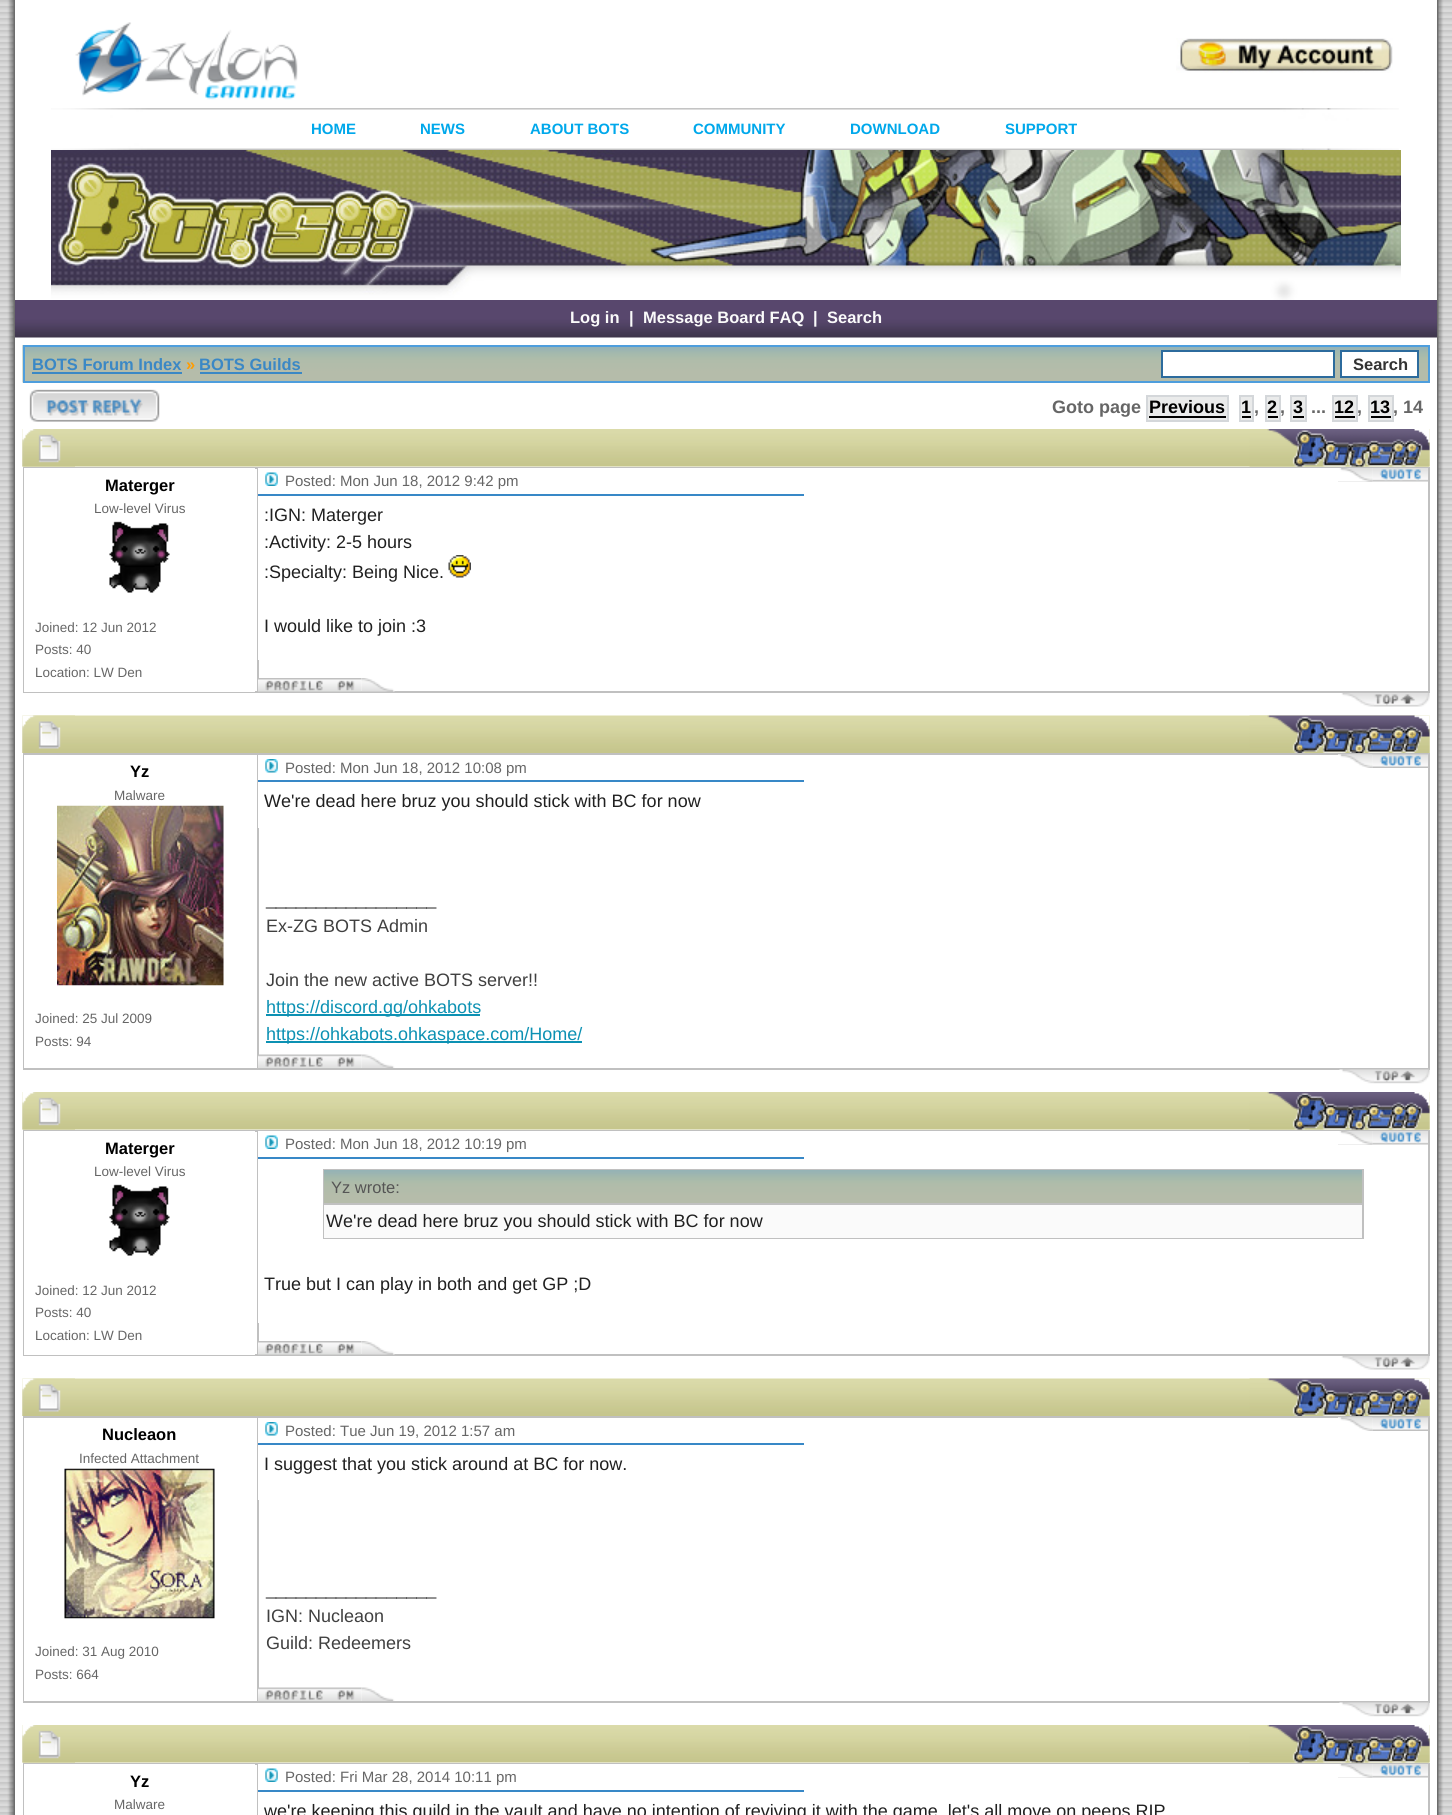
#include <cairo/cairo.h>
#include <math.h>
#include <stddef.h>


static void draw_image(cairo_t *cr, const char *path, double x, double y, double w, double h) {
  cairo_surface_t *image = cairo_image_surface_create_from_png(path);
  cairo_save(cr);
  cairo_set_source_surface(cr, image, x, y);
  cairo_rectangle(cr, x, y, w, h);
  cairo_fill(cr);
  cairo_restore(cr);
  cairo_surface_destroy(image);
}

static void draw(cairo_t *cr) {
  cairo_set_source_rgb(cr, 1, 1, 1);
  cairo_paint(cr);
  draw_image(cr, "images/1.png", 0, 0, 15, 1815);
  draw_image(cr, "images/2.png", 75, 22, 223, 78);
  draw_image(cr, "images/3.png", 1176, 38, 217, 35);
  draw_image(cr, "images/4.png", 51, 108, 1348, 42);
  draw_image(cr, "images/5.png", 51, 150, 1350, 150);
  draw_image(cr, "images/6.png", 15, 300, 1422, 38);
  draw_image(cr, "images/7.png", 22, 345, 1406, 38);
  cairo_rectangle(cr, 24, 346, 1405, 36);
  cairo_set_source_rgb(cr, 78 / 255.0, 158 / 255.0, 221 / 255.0);
  cairo_stroke(cr);
  cairo_set_source_rgb(cr, 59 / 255.0, 136 / 255.0, 197 / 255.0);
  cairo_rectangle(cr, 32, 372, 150, 2);
  cairo_fill(cr);
  cairo_rectangle(cr, 200, 372, 102, 2);
  cairo_fill(cr);
  cairo_set_source_rgb(cr, 1, 1, 1);
  cairo_rectangle(cr, 1162, 351, 172, 26);
  cairo_fill_preserve(cr);
  cairo_set_source_rgb(cr, 44 / 255.0, 107 / 255.0, 157 / 255.0);
  cairo_stroke(cr);
  cairo_set_source_rgb(cr, 1, 1, 1);
  cairo_rectangle(cr, 1341, 351, 77, 26);
  cairo_fill_preserve(cr);
  cairo_set_source_rgb(cr, 44 / 255.0, 107 / 255.0, 157 / 255.0);
  cairo_stroke(cr);
  draw_image(cr, "images/8.png", 29, 389, 131, 33);
  cairo_set_source_rgb(cr, 234 / 255.0, 235 / 255.0, 235 / 255.0);
  cairo_rectangle(cr, 1147, 396, 81, 25);
  cairo_fill_preserve(cr);
  cairo_set_source_rgb(cr, 212 / 255.0, 215 / 255.0, 218 / 255.0);
  cairo_stroke(cr);
  cairo_set_source_rgb(cr, 0, 0, 0);
  cairo_rectangle(cr, 1149, 416, 77, 2);
  cairo_fill(cr);
  cairo_set_source_rgb(cr, 234 / 255.0, 235 / 255.0, 235 / 255.0);
  cairo_rectangle(cr, 1240, 396, 13, 25);
  cairo_fill_preserve(cr);
  cairo_set_source_rgb(cr, 212 / 255.0, 215 / 255.0, 218 / 255.0);
  cairo_stroke(cr);
  cairo_set_source_rgb(cr, 0, 0, 0);
  cairo_rectangle(cr, 1242, 416, 9, 2);
  cairo_fill(cr);
  cairo_set_source_rgb(cr, 234 / 255.0, 235 / 255.0, 235 / 255.0);
  cairo_rectangle(cr, 1266, 396, 14, 25);
  cairo_fill_preserve(cr);
  cairo_set_source_rgb(cr, 212 / 255.0, 215 / 255.0, 218 / 255.0);
  cairo_stroke(cr);
  cairo_set_source_rgb(cr, 0, 0, 0);
  cairo_rectangle(cr, 1268, 416, 10, 2);
  cairo_fill(cr);
  cairo_set_source_rgb(cr, 234 / 255.0, 235 / 255.0, 235 / 255.0);
  cairo_rectangle(cr, 1291, 396, 15, 25);
  cairo_fill_preserve(cr);
  cairo_set_source_rgb(cr, 212 / 255.0, 215 / 255.0, 218 / 255.0);
  cairo_stroke(cr);
  cairo_set_source_rgb(cr, 0, 0, 0);
  cairo_rectangle(cr, 1293, 416, 11, 2);
  cairo_fill(cr);
  cairo_set_source_rgb(cr, 234 / 255.0, 235 / 255.0, 235 / 255.0);
  cairo_rectangle(cr, 1333, 396, 24, 25);
  cairo_fill_preserve(cr);
  cairo_set_source_rgb(cr, 212 / 255.0, 215 / 255.0, 218 / 255.0);
  cairo_stroke(cr);
  cairo_set_source_rgb(cr, 0, 0, 0);
  cairo_rectangle(cr, 1335, 416, 20, 2);
  cairo_fill(cr);
  cairo_set_source_rgb(cr, 234 / 255.0, 235 / 255.0, 235 / 255.0);
  cairo_rectangle(cr, 1369, 396, 24, 25);
  cairo_fill_preserve(cr);
  cairo_set_source_rgb(cr, 212 / 255.0, 215 / 255.0, 218 / 255.0);
  cairo_stroke(cr);
  cairo_set_source_rgb(cr, 0, 0, 0);
  cairo_rectangle(cr, 1371, 416, 20, 2);
  cairo_fill(cr);
  draw_image(cr, "images/9.png", 22, 429, 1408, 38);
  draw_image(cr, "images/10.png", 22, 429, 53, 38);
  draw_image(cr, "images/11.png", 1249, 429, 181, 38);
  cairo_rectangle(cr, 24, 468, 1405, 224);
  cairo_set_source_rgb(cr, 192 / 255.0, 192 / 255.0, 192 / 255.0);
  cairo_stroke(cr);
  cairo_set_source_rgb(cr, 1, 1, 1);
  cairo_rectangle(cr, 24, 468, 231, 224);
  cairo_fill(cr);
  draw_image(cr, "images/12.png", 109, 521, 61, 72);
  cairo_set_source_rgb(cr, 192 / 255.0, 192 / 255.0, 192 / 255.0);
  cairo_rectangle(cr, 257, 468, 2, 224);
  cairo_fill(cr);
  cairo_set_source_rgb(cr, 1, 1, 1);
  cairo_rectangle(cr, 258, 468, 1170, 192);
  cairo_fill(cr);
  draw_image(cr, "images/13.png", 265, 472, 13, 14);
  draw_image(cr, "images/14.png", 1338, 468, 35, 14);
  draw_image(cr, "images/16.png", 1372, 468, 56, 14);
  draw_image(cr, "images/15.png", 1338, 468, 35, 14);
  draw_image(cr, "images/17.png", 1379, 469, 42, 12);
  cairo_set_source_rgb(cr, 56 / 255.0, 136 / 255.0, 199 / 255.0);
  cairo_rectangle(cr, 258, 494, 546, 2);
  cairo_fill(cr);
  draw_image(cr, "images/18.png", 448, 555, 23, 23);
  draw_image(cr, "images/19.png", 258, 678, 104, 14);
  draw_image(cr, "images/20.png", 265, 680, 58, 11);
  draw_image(cr, "images/21.png", 337, 680, 18, 11);
  draw_image(cr, "images/22.png", 361, 678, 34, 14);
  draw_image(cr, "images/23.png", 1341, 693, 89, 14);
  draw_image(cr, "images/24.png", 22, 715, 1408, 38);
  draw_image(cr, "images/25.png", 22, 715, 53, 38);
  draw_image(cr, "images/26.png", 1249, 715, 181, 38);
  cairo_rectangle(cr, 24, 754, 1405, 315);
  cairo_set_source_rgb(cr, 192 / 255.0, 192 / 255.0, 192 / 255.0);
  cairo_stroke(cr);
  cairo_set_source_rgb(cr, 1, 1, 1);
  cairo_rectangle(cr, 24, 755, 1, 313);
  cairo_fill(cr);
  draw_image(cr, "images/27.png", 57, 805, 167, 181);
  cairo_set_source_rgb(cr, 192 / 255.0, 192 / 255.0, 192 / 255.0);
  cairo_rectangle(cr, 257, 755, 2, 313);
  cairo_fill(cr);
  cairo_set_source_rgb(cr, 1, 1, 1);
  cairo_rectangle(cr, 258, 755, 1, 73);
  cairo_fill(cr);
  draw_image(cr, "images/28.png", 265, 759, 13, 14);
  draw_image(cr, "images/29.png", 1338, 754, 35, 14);
  draw_image(cr, "images/31.png", 1372, 754, 56, 14);
  draw_image(cr, "images/30.png", 1338, 754, 35, 14);
  draw_image(cr, "images/32.png", 1379, 755, 42, 12);
  cairo_set_source_rgb(cr, 56 / 255.0, 136 / 255.0, 199 / 255.0);
  cairo_rectangle(cr, 258, 780, 546, 2);
  cairo_fill(cr);
  cairo_set_source_rgb(cr, 12 / 255.0, 145 / 255.0, 179 / 255.0);
  cairo_rectangle(cr, 266, 1014, 214, 2);
  cairo_fill(cr);
  cairo_rectangle(cr, 266, 1041, 316, 2);
  cairo_fill(cr);
  draw_image(cr, "images/33.png", 258, 1054, 104, 14);
  draw_image(cr, "images/34.png", 265, 1057, 58, 10);
  draw_image(cr, "images/35.png", 337, 1057, 18, 10);
  draw_image(cr, "images/36.png", 361, 1054, 34, 14);
  draw_image(cr, "images/37.png", 1339, 1069, 91, 15);
  draw_image(cr, "images/9.png", 22, 1092, 1408, 38);
  draw_image(cr, "images/10.png", 22, 1092, 53, 38);
  draw_image(cr, "images/11.png", 1249, 1092, 181, 38);
  cairo_rectangle(cr, 24, 1131, 1405, 224);
  cairo_set_source_rgb(cr, 192 / 255.0, 192 / 255.0, 192 / 255.0);
  cairo_stroke(cr);
  cairo_set_source_rgb(cr, 1, 1, 1);
  cairo_rectangle(cr, 24, 1131, 231, 224);
  cairo_fill(cr);
  draw_image(cr, "images/12.png", 109, 1184, 61, 72);
  cairo_set_source_rgb(cr, 192 / 255.0, 192 / 255.0, 192 / 255.0);
  cairo_rectangle(cr, 257, 1131, 2, 224);
  cairo_fill(cr);
  cairo_set_source_rgb(cr, 1, 1, 1);
  cairo_rectangle(cr, 258, 1131, 1170, 192);
  cairo_fill(cr);
  draw_image(cr, "images/13.png", 265, 1135, 13, 14);
  draw_image(cr, "images/14.png", 1338, 1131, 35, 14);
  draw_image(cr, "images/16.png", 1372, 1131, 56, 14);
  draw_image(cr, "images/15.png", 1338, 1131, 35, 14);
  draw_image(cr, "images/17.png", 1379, 1132, 42, 12);
  cairo_set_source_rgb(cr, 56 / 255.0, 136 / 255.0, 199 / 255.0);
  cairo_rectangle(cr, 258, 1157, 546, 2);
  cairo_fill(cr);
  cairo_set_source_rgb(cr, 192 / 255.0, 192 / 255.0, 192 / 255.0);
  cairo_rectangle(cr, 323, 1169, 1041, 70);
  cairo_fill(cr);
  draw_image(cr, "images/38.png", 324, 1170, 1038, 33);
  cairo_set_source_rgb(cr, 250 / 255.0, 250 / 255.0, 250 / 255.0);
  cairo_rectangle(cr, 324, 1205, 1038, 33);
  cairo_fill(cr);
  draw_image(cr, "images/19.png", 258, 1341, 104, 14);
  draw_image(cr, "images/20.png", 265, 1343, 58, 11);
  draw_image(cr, "images/21.png", 337, 1343, 18, 11);
  draw_image(cr, "images/22.png", 361, 1341, 34, 14);
  draw_image(cr, "images/23.png", 1341, 1356, 89, 14);
  draw_image(cr, "images/24.png", 22, 1378, 1408, 38);
  draw_image(cr, "images/25.png", 22, 1378, 53, 38);
  draw_image(cr, "images/26.png", 1249, 1378, 181, 38);
  cairo_rectangle(cr, 24, 1417, 1405, 285);
  cairo_set_source_rgb(cr, 192 / 255.0, 192 / 255.0, 192 / 255.0);
  cairo_stroke(cr);
  cairo_set_source_rgb(cr, 1, 1, 1);
  cairo_rectangle(cr, 24, 1418, 1, 283);
  cairo_fill(cr);
  draw_image(cr, "images/39.png", 64, 1468, 151, 151);
  cairo_set_source_rgb(cr, 192 / 255.0, 192 / 255.0, 192 / 255.0);
  cairo_rectangle(cr, 257, 1418, 2, 283);
  cairo_fill(cr);
  cairo_set_source_rgb(cr, 1, 1, 1);
  cairo_rectangle(cr, 258, 1418, 1, 82);
  cairo_fill(cr);
  draw_image(cr, "images/28.png", 265, 1422, 13, 14);
  draw_image(cr, "images/29.png", 1338, 1417, 35, 14);
  draw_image(cr, "images/31.png", 1372, 1417, 56, 14);
  draw_image(cr, "images/30.png", 1338, 1417, 35, 14);
  draw_image(cr, "images/32.png", 1379, 1418, 42, 12);
  cairo_set_source_rgb(cr, 56 / 255.0, 136 / 255.0, 199 / 255.0);
  cairo_rectangle(cr, 258, 1443, 546, 2);
  cairo_fill(cr);
  draw_image(cr, "images/33.png", 258, 1687, 104, 14);
  draw_image(cr, "images/34.png", 265, 1690, 58, 10);
  draw_image(cr, "images/35.png", 337, 1690, 18, 10);
  draw_image(cr, "images/36.png", 361, 1687, 34, 14);
  draw_image(cr, "images/37.png", 1339, 1702, 91, 15);
  draw_image(cr, "images/9.png", 22, 1725, 1408, 38);
  draw_image(cr, "images/10.png", 22, 1725, 53, 38);
  draw_image(cr, "images/11.png", 1249, 1725, 181, 38);
  cairo_rectangle(cr, 24, 1764, 1405, 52);
  cairo_set_source_rgb(cr, 192 / 255.0, 192 / 255.0, 192 / 255.0);
  cairo_stroke(cr);
  cairo_set_source_rgb(cr, 1, 1, 1);
  cairo_rectangle(cr, 24, 1764, 231, 51);
  cairo_fill(cr);
  cairo_set_source_rgb(cr, 192 / 255.0, 192 / 255.0, 192 / 255.0);
  cairo_rectangle(cr, 257, 1764, 1, 51);
  cairo_fill(cr);
  cairo_set_source_rgb(cr, 1, 1, 1);
  cairo_rectangle(cr, 258, 1764, 1170, 1);
  cairo_fill(cr);
  draw_image(cr, "images/13.png", 265, 1768, 13, 14);
  draw_image(cr, "images/14.png", 1338, 1764, 35, 14);
  draw_image(cr, "images/16.png", 1372, 1764, 56, 14);
  draw_image(cr, "images/15.png", 1338, 1764, 35, 14);
  draw_image(cr, "images/17.png", 1379, 1765, 42, 12);
  cairo_set_source_rgb(cr, 56 / 255.0, 136 / 255.0, 199 / 255.0);
  cairo_rectangle(cr, 258, 1790, 546, 2);
  cairo_fill(cr);
  draw_image(cr, "images/40.png", 1437, 0, 15, 1815);
  cairo_select_font_face(cr, "Liberation Sans", CAIRO_FONT_SLANT_NORMAL, CAIRO_FONT_WEIGHT_BOLD);
  cairo_set_font_size(cr, 15);
  cairo_set_source_rgb(cr, 0, 168 / 255.0, 235 / 255.0);
  cairo_move_to(cr, 311, 134);
  cairo_show_text(cr, "HOME");
  cairo_move_to(cr, 420, 134);
  cairo_show_text(cr, "NEWS");
  cairo_move_to(cr, 530, 134);
  cairo_show_text(cr, "ABOUT BOTS");
  cairo_move_to(cr, 693, 134);
  cairo_show_text(cr, "COMMUNITY");
  cairo_move_to(cr, 850, 134);
  cairo_show_text(cr, "DOWNLOAD");
  cairo_move_to(cr, 1005, 134);
  cairo_show_text(cr, "SUPPORT");
  cairo_set_font_size(cr, 16.5);
  cairo_set_source_rgb(cr, 250 / 255.0, 250 / 255.0, 250 / 255.0);
  cairo_move_to(cr, 570, 323);
  cairo_show_text(cr, "Log in");
  cairo_move_to(cr, 629, 323);
  cairo_show_text(cr, "|");
  cairo_move_to(cr, 643, 323);
  cairo_show_text(cr, "Message Board FAQ");
  cairo_move_to(cr, 813, 323);
  cairo_show_text(cr, "|");
  cairo_move_to(cr, 827, 323);
  cairo_show_text(cr, "Search");
  cairo_set_source_rgb(cr, 59 / 255.0, 136 / 255.0, 197 / 255.0);
  cairo_move_to(cr, 32, 370);
  cairo_show_text(cr, "BOTS Forum Index");
  cairo_set_source_rgb(cr, 1, 156 / 255.0, 0);
  cairo_move_to(cr, 186, 370);
  cairo_show_text(cr, "»");
  cairo_set_source_rgb(cr, 59 / 255.0, 136 / 255.0, 197 / 255.0);
  cairo_move_to(cr, 199, 370);
  cairo_show_text(cr, "BOTS Guilds");
  cairo_set_source_rgb(cr, 51 / 255.0, 51 / 255.0, 51 / 255.0);
  cairo_move_to(cr, 1353, 370);
  cairo_show_text(cr, "Search");
  cairo_set_font_size(cr, 18);
  cairo_set_source_rgb(cr, 102 / 255.0, 102 / 255.0, 102 / 255.0);
  cairo_move_to(cr, 1052, 413);
  cairo_show_text(cr, "Goto page");
  cairo_set_source_rgb(cr, 0, 0, 0);
  cairo_move_to(cr, 1149, 413);
  cairo_show_text(cr, "Previous");
  cairo_move_to(cr, 1241, 413);
  cairo_show_text(cr, "1");
  cairo_set_source_rgb(cr, 102 / 255.0, 102 / 255.0, 102 / 255.0);
  cairo_move_to(cr, 1254, 413);
  cairo_show_text(cr, ",");
  cairo_set_source_rgb(cr, 0, 0, 0);
  cairo_move_to(cr, 1267, 413);
  cairo_show_text(cr, "2");
  cairo_set_source_rgb(cr, 102 / 255.0, 102 / 255.0, 102 / 255.0);
  cairo_move_to(cr, 1280, 413);
  cairo_show_text(cr, ",");
  cairo_set_source_rgb(cr, 0, 0, 0);
  cairo_move_to(cr, 1293, 413);
  cairo_show_text(cr, "3");
  cairo_set_source_rgb(cr, 102 / 255.0, 102 / 255.0, 102 / 255.0);
  cairo_move_to(cr, 1311, 413);
  cairo_show_text(cr, "...");
  cairo_set_source_rgb(cr, 0, 0, 0);
  cairo_move_to(cr, 1334, 413);
  cairo_show_text(cr, "12");
  cairo_set_source_rgb(cr, 102 / 255.0, 102 / 255.0, 102 / 255.0);
  cairo_move_to(cr, 1357, 413);
  cairo_show_text(cr, ",");
  cairo_set_source_rgb(cr, 0, 0, 0);
  cairo_move_to(cr, 1370, 413);
  cairo_show_text(cr, "13");
  cairo_set_source_rgb(cr, 102 / 255.0, 102 / 255.0, 102 / 255.0);
  cairo_move_to(cr, 1393, 413);
  cairo_show_text(cr, ", 14");
  cairo_set_font_size(cr, 16.5);
  cairo_set_source_rgb(cr, 0, 0, 0);
  cairo_move_to(cr, 105, 491);
  cairo_show_text(cr, "Materger");
  cairo_select_font_face(cr, "Liberation Sans", CAIRO_FONT_SLANT_NORMAL, CAIRO_FONT_WEIGHT_NORMAL);
  cairo_set_font_size(cr, 13.5);
  cairo_set_source_rgb(cr, 102 / 255.0, 102 / 255.0, 102 / 255.0);
  cairo_move_to(cr, 94, 513);
  cairo_show_text(cr, "Low-level Virus");
  cairo_move_to(cr, 35, 632);
  cairo_show_text(cr, "Joined: 12 Jun 2012");
  cairo_move_to(cr, 35, 654);
  cairo_show_text(cr, "Posts: 40");
  cairo_move_to(cr, 35, 677);
  cairo_show_text(cr, "Location: LW Den");
  cairo_set_font_size(cr, 15);
  cairo_move_to(cr, 285, 486);
  cairo_show_text(cr, "Posted: Mon Jun 18, 2012 9:42 pm");
  cairo_set_font_size(cr, 18);
  cairo_set_source_rgb(cr, 32 / 255.0, 32 / 255.0, 32 / 255.0);
  cairo_move_to(cr, 264, 521);
  cairo_show_text(cr, ":IGN: Materger");
  cairo_move_to(cr, 264, 548);
  cairo_show_text(cr, ":Activity: 2-5 hours");
  cairo_move_to(cr, 264, 578);
  cairo_show_text(cr, ":Specialty: Being Nice.");
  cairo_move_to(cr, 264, 632);
  cairo_show_text(cr, "I would like to join :3");
  cairo_select_font_face(cr, "Liberation Sans", CAIRO_FONT_SLANT_NORMAL, CAIRO_FONT_WEIGHT_BOLD);
  cairo_set_font_size(cr, 16.5);
  cairo_set_source_rgb(cr, 0, 0, 0);
  cairo_move_to(cr, 130, 777);
  cairo_show_text(cr, "Yz");
  cairo_select_font_face(cr, "Liberation Sans", CAIRO_FONT_SLANT_NORMAL, CAIRO_FONT_WEIGHT_NORMAL);
  cairo_set_font_size(cr, 13.5);
  cairo_set_source_rgb(cr, 102 / 255.0, 102 / 255.0, 102 / 255.0);
  cairo_move_to(cr, 114, 800);
  cairo_show_text(cr, "Malware");
  cairo_move_to(cr, 35, 1023);
  cairo_show_text(cr, "Joined: 25 Jul 2009");
  cairo_move_to(cr, 35, 1046);
  cairo_show_text(cr, "Posts: 94");
  cairo_set_font_size(cr, 15);
  cairo_move_to(cr, 285, 773);
  cairo_show_text(cr, "Posted: Mon Jun 18, 2012 10:08 pm");
  cairo_set_font_size(cr, 18);
  cairo_set_source_rgb(cr, 32 / 255.0, 32 / 255.0, 32 / 255.0);
  cairo_move_to(cr, 264, 807);
  cairo_show_text(cr, "We're dead here bruz you should stick with BC for now");
  cairo_set_source_rgb(cr, 64 / 255.0, 64 / 255.0, 64 / 255.0);
  cairo_move_to(cr, 266, 905);
  cairo_show_text(cr, "_________________");
  cairo_move_to(cr, 266, 932);
  cairo_show_text(cr, "Ex-ZG BOTS Admin");
  cairo_move_to(cr, 266, 986);
  cairo_show_text(cr, "Join the new active BOTS server!!");
  cairo_set_source_rgb(cr, 12 / 255.0, 145 / 255.0, 179 / 255.0);
  cairo_move_to(cr, 266, 1013);
  cairo_show_text(cr, "https://discord.gg/ohkabots");
  cairo_move_to(cr, 266, 1040);
  cairo_show_text(cr, "https://ohkabots.ohkaspace.com/Home/");
  cairo_select_font_face(cr, "Liberation Sans", CAIRO_FONT_SLANT_NORMAL, CAIRO_FONT_WEIGHT_BOLD);
  cairo_set_font_size(cr, 16.5);
  cairo_set_source_rgb(cr, 0, 0, 0);
  cairo_move_to(cr, 105, 1154);
  cairo_show_text(cr, "Materger");
  cairo_select_font_face(cr, "Liberation Sans", CAIRO_FONT_SLANT_NORMAL, CAIRO_FONT_WEIGHT_NORMAL);
  cairo_set_font_size(cr, 13.5);
  cairo_set_source_rgb(cr, 102 / 255.0, 102 / 255.0, 102 / 255.0);
  cairo_move_to(cr, 94, 1176);
  cairo_show_text(cr, "Low-level Virus");
  cairo_move_to(cr, 35, 1295);
  cairo_show_text(cr, "Joined: 12 Jun 2012");
  cairo_move_to(cr, 35, 1317);
  cairo_show_text(cr, "Posts: 40");
  cairo_move_to(cr, 35, 1340);
  cairo_show_text(cr, "Location: LW Den");
  cairo_set_font_size(cr, 15);
  cairo_move_to(cr, 285, 1149);
  cairo_show_text(cr, "Posted: Mon Jun 18, 2012 10:19 pm");
  cairo_set_font_size(cr, 16.5);
  cairo_set_source_rgb(cr, 85 / 255.0, 85 / 255.0, 85 / 255.0);
  cairo_move_to(cr, 331, 1193);
  cairo_show_text(cr, "Yz wrote:");
  cairo_set_font_size(cr, 18);
  cairo_set_source_rgb(cr, 32 / 255.0, 32 / 255.0, 32 / 255.0);
  cairo_move_to(cr, 326, 1227);
  cairo_show_text(cr, "We're dead here bruz you should stick with BC for now");
  cairo_move_to(cr, 264, 1290);
  cairo_show_text(cr, "True but I can play in both and get GP ;D");
  cairo_select_font_face(cr, "Liberation Sans", CAIRO_FONT_SLANT_NORMAL, CAIRO_FONT_WEIGHT_BOLD);
  cairo_set_font_size(cr, 16.5);
  cairo_set_source_rgb(cr, 0, 0, 0);
  cairo_move_to(cr, 102, 1440);
  cairo_show_text(cr, "Nucleaon");
  cairo_select_font_face(cr, "Liberation Sans", CAIRO_FONT_SLANT_NORMAL, CAIRO_FONT_WEIGHT_NORMAL);
  cairo_set_font_size(cr, 13.5);
  cairo_set_source_rgb(cr, 102 / 255.0, 102 / 255.0, 102 / 255.0);
  cairo_move_to(cr, 79, 1463);
  cairo_show_text(cr, "Infected Attachment");
  cairo_move_to(cr, 35, 1656);
  cairo_show_text(cr, "Joined: 31 Aug 2010");
  cairo_move_to(cr, 35, 1679);
  cairo_show_text(cr, "Posts: 664");
  cairo_set_font_size(cr, 15);
  cairo_move_to(cr, 285, 1436);
  cairo_show_text(cr, "Posted: Tue Jun 19, 2012 1:57 am");
  cairo_set_font_size(cr, 18);
  cairo_set_source_rgb(cr, 32 / 255.0, 32 / 255.0, 32 / 255.0);
  cairo_move_to(cr, 264, 1470);
  cairo_show_text(cr, "I suggest that you stick around at BC for now.");
  cairo_set_source_rgb(cr, 64 / 255.0, 64 / 255.0, 64 / 255.0);
  cairo_move_to(cr, 266, 1595);
  cairo_show_text(cr, "_________________");
  cairo_move_to(cr, 266, 1622);
  cairo_show_text(cr, "IGN: Nucleaon");
  cairo_move_to(cr, 266, 1649);
  cairo_show_text(cr, "Guild: Redeemers");
  cairo_select_font_face(cr, "Liberation Sans", CAIRO_FONT_SLANT_NORMAL, CAIRO_FONT_WEIGHT_BOLD);
  cairo_set_font_size(cr, 16.5);
  cairo_set_source_rgb(cr, 0, 0, 0);
  cairo_move_to(cr, 130, 1787);
  cairo_show_text(cr, "Yz");
  cairo_select_font_face(cr, "Liberation Sans", CAIRO_FONT_SLANT_NORMAL, CAIRO_FONT_WEIGHT_NORMAL);
  cairo_set_font_size(cr, 13.5);
  cairo_set_source_rgb(cr, 102 / 255.0, 102 / 255.0, 102 / 255.0);
  cairo_move_to(cr, 114, 1809);
  cairo_show_text(cr, "Malware");
  cairo_set_font_size(cr, 15);
  cairo_move_to(cr, 285, 1782);
  cairo_show_text(cr, "Posted: Fri Mar 28, 2014 10:11 pm");
  cairo_set_font_size(cr, 18);
  cairo_set_source_rgb(cr, 32 / 255.0, 32 / 255.0, 32 / 255.0);
  cairo_move_to(cr, 264, 1817);
  cairo_show_text(cr, "we're keeping this guild in the vault and have no intention of reviving it with the game, let's all move on peeps RIP");
}

int main(void) {
  cairo_surface_t *surface = cairo_image_surface_create(CAIRO_FORMAT_RGB24, 1452, 1815);
  cairo_t *cr = cairo_create(surface);
  cairo_font_options_t *options = cairo_font_options_create();
  cairo_font_options_set_hint_metrics(options, CAIRO_HINT_METRICS_OFF);
  cairo_font_options_set_hint_style(options, CAIRO_HINT_STYLE_NONE);
  cairo_set_font_options(cr, options);
  cairo_set_miter_limit(cr, 4);
  draw(cr);
  cairo_surface_write_to_png(surface, "out.png");
  cairo_font_options_destroy(options);
  cairo_destroy(cr);
  cairo_surface_destroy(surface);
  return 0;
}
